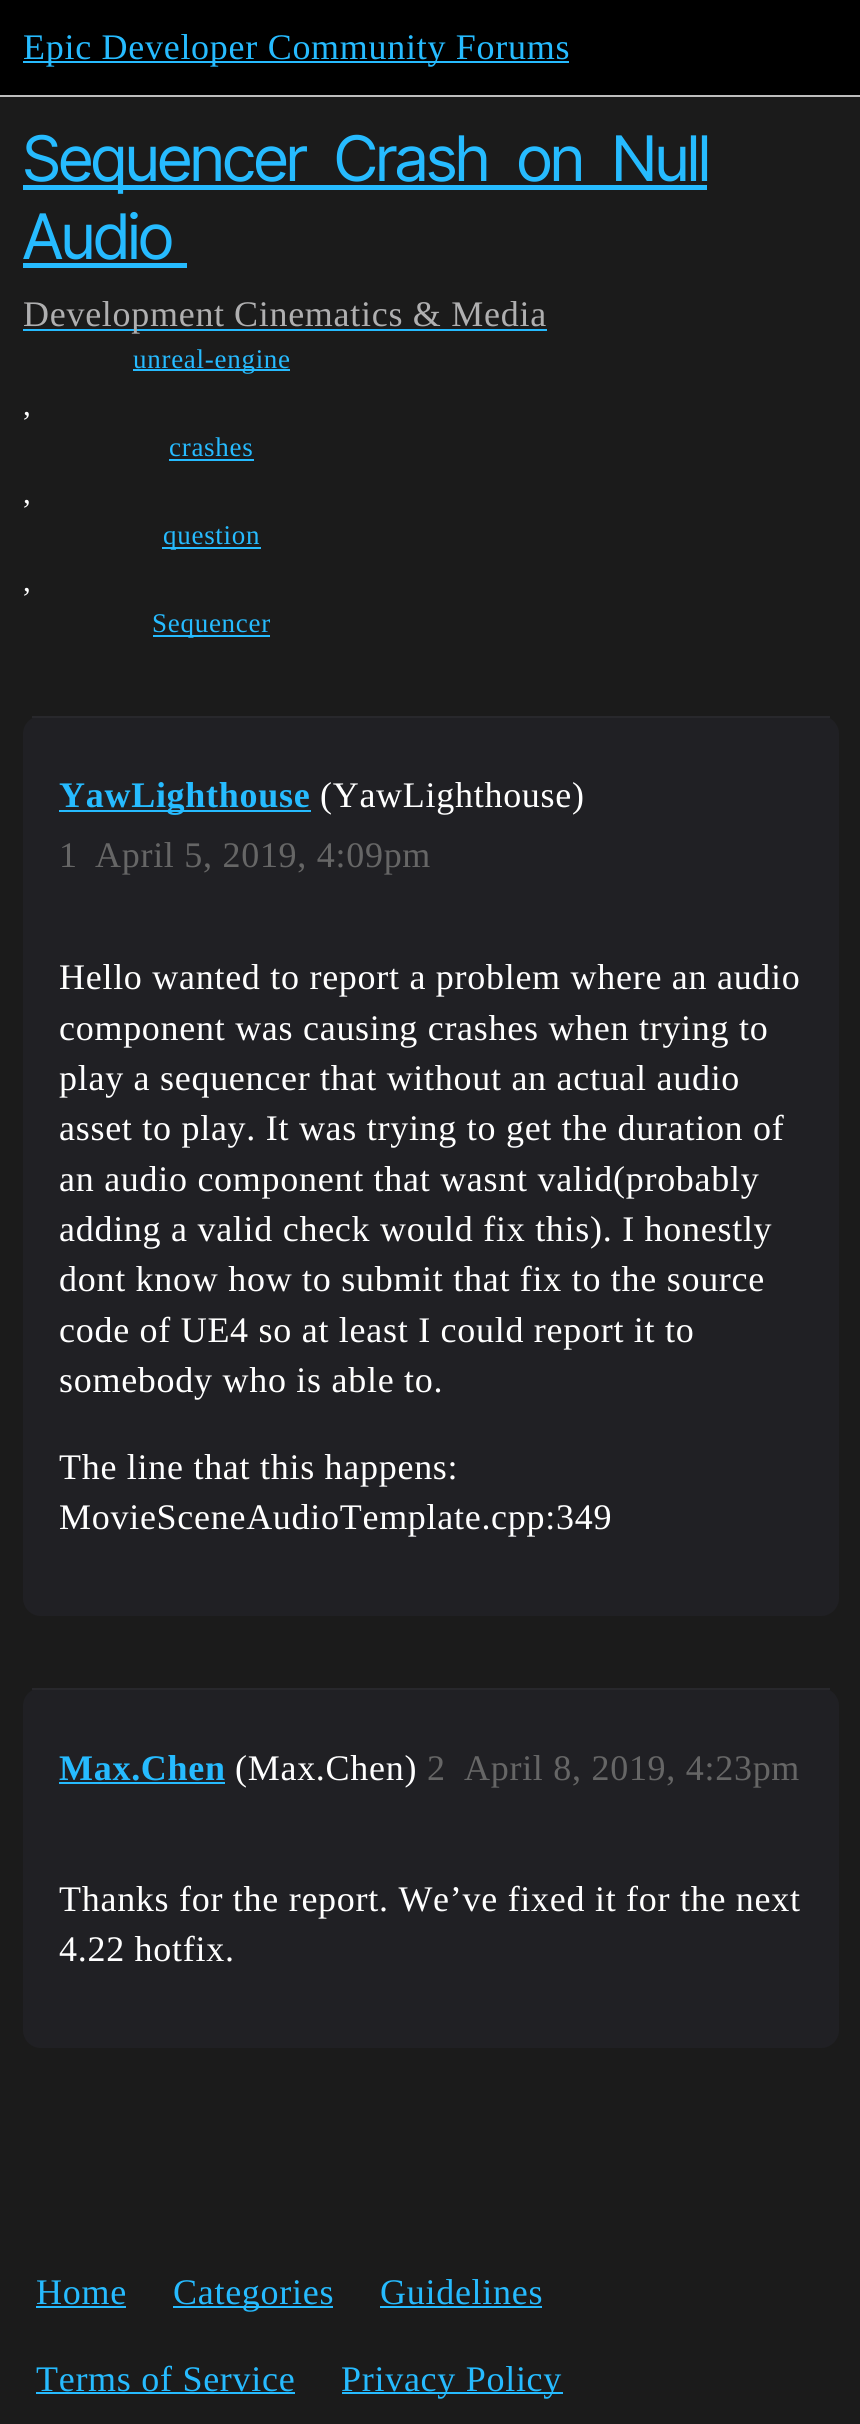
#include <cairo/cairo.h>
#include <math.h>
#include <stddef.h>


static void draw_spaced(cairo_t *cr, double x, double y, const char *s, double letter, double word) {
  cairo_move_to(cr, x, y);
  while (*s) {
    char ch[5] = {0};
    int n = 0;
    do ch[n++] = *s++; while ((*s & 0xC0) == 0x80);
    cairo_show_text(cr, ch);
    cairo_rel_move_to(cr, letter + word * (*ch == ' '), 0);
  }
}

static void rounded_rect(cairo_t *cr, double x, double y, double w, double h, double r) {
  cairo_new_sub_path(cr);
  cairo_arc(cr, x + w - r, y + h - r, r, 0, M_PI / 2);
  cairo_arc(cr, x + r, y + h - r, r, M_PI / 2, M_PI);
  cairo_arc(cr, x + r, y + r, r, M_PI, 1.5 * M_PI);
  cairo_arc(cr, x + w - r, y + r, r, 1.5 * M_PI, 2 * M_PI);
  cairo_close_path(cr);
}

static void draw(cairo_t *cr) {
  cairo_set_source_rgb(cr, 27 / 255.0, 27 / 255.0, 27 / 255.0);
  cairo_paint(cr);
  cairo_set_source_rgb(cr, 0, 0, 0);
  cairo_rectangle(cr, 0, 0, 860, 95);
  cairo_fill(cr);
  cairo_set_source_rgb(cr, 189 / 255.0, 189 / 255.0, 189 / 255.0);
  cairo_rectangle(cr, 0, 95, 860, 2);
  cairo_fill(cr);
  cairo_set_source_rgb(cr, 38 / 255.0, 187 / 255.0, 1);
  cairo_rectangle(cr, 23, 61, 546, 2);
  cairo_fill(cr);
  cairo_rectangle(cr, 23, 185, 684, 5);
  cairo_fill(cr);
  cairo_rectangle(cr, 23, 263, 164, 5);
  cairo_fill(cr);
  cairo_rectangle(cr, 23, 329, 524, 2);
  cairo_fill(cr);
  cairo_rectangle(cr, 133, 369, 157, 2);
  cairo_fill(cr);
  cairo_rectangle(cr, 169, 459, 85, 2);
  cairo_fill(cr);
  cairo_rectangle(cr, 162, 547, 99, 2);
  cairo_fill(cr);
  cairo_rectangle(cr, 153, 635, 117, 2);
  cairo_fill(cr);
  cairo_set_source_rgb(cr, 32 / 255.0, 32 / 255.0, 36 / 255.0);
  rounded_rect(cr, 23, 716, 816, 900, 18);
  cairo_fill(cr);
  cairo_set_source_rgb(cr, 40 / 255.0, 40 / 255.0, 44 / 255.0);
  cairo_rectangle(cr, 32, 716, 798, 2);
  cairo_fill(cr);
  cairo_set_source_rgb(cr, 38 / 255.0, 187 / 255.0, 1);
  cairo_rectangle(cr, 59, 810, 252, 2);
  cairo_fill(cr);
  cairo_set_source_rgb(cr, 32 / 255.0, 32 / 255.0, 36 / 255.0);
  rounded_rect(cr, 23, 1688, 816, 360, 18);
  cairo_fill(cr);
  cairo_set_source_rgb(cr, 40 / 255.0, 40 / 255.0, 44 / 255.0);
  cairo_rectangle(cr, 32, 1688, 798, 2);
  cairo_fill(cr);
  cairo_set_source_rgb(cr, 38 / 255.0, 187 / 255.0, 1);
  cairo_rectangle(cr, 59, 1782, 166, 2);
  cairo_fill(cr);
  cairo_rectangle(cr, 36, 2306, 90, 2);
  cairo_fill(cr);
  cairo_rectangle(cr, 173, 2306, 160, 2);
  cairo_fill(cr);
  cairo_rectangle(cr, 380, 2306, 162, 2);
  cairo_fill(cr);
  cairo_rectangle(cr, 36, 2392, 259, 2);
  cairo_fill(cr);
  cairo_rectangle(cr, 342, 2392, 221, 2);
  cairo_fill(cr);
  cairo_select_font_face(cr, "Liberation Serif", CAIRO_FONT_SLANT_NORMAL, CAIRO_FONT_WEIGHT_NORMAL);
  cairo_set_font_size(cr, 36);
  draw_spaced(cr, 23, 59, "Epic Developer Community Forums", 0.72, 0);
  cairo_select_font_face(cr, "Inter Tight", CAIRO_FONT_SLANT_NORMAL, CAIRO_FONT_WEIGHT_NORMAL);
  cairo_set_font_size(cr, 62.75);
  draw_spaced(cr, 23, 181, "Sequencer Crash on Null", -1.1, 15);
  draw_spaced(cr, 23, 259, "Audio", -1.1, 0);
  cairo_select_font_face(cr, "Liberation Serif", CAIRO_FONT_SLANT_NORMAL, CAIRO_FONT_WEIGHT_NORMAL);
  cairo_set_font_size(cr, 36);
  cairo_set_source_rgb(cr, 175 / 255.0, 175 / 255.0, 176 / 255.0);
  draw_spaced(cr, 23, 326, "Development", 0.72, 0);
  draw_spaced(cr, 234, 326, "Cinematics & Media", 0.72, 0);
  cairo_set_font_size(cr, 27);
  cairo_set_source_rgb(cr, 38 / 255.0, 187 / 255.0, 1);
  draw_spaced(cr, 133, 368, "unreal-engine", 0.72, 0);
  cairo_set_font_size(cr, 31);
  cairo_set_source_rgb(cr, 1, 1, 1);
  draw_spaced(cr, 23, 415, ",", 0.72, 0);
  cairo_set_font_size(cr, 27);
  cairo_set_source_rgb(cr, 38 / 255.0, 187 / 255.0, 1);
  draw_spaced(cr, 169, 456, "crashes", 0.72, 0);
  cairo_set_font_size(cr, 31);
  cairo_set_source_rgb(cr, 1, 1, 1);
  draw_spaced(cr, 23, 503, ",", 0.72, 0);
  cairo_set_font_size(cr, 27);
  cairo_set_source_rgb(cr, 38 / 255.0, 187 / 255.0, 1);
  draw_spaced(cr, 163, 544, "question", 0.72, 0);
  cairo_set_font_size(cr, 31);
  cairo_set_source_rgb(cr, 1, 1, 1);
  draw_spaced(cr, 23, 591, ",", 0.72, 0);
  cairo_set_font_size(cr, 27);
  cairo_set_source_rgb(cr, 38 / 255.0, 187 / 255.0, 1);
  draw_spaced(cr, 152, 632, "Sequencer", 0.72, 0);
  cairo_select_font_face(cr, "Liberation Serif", CAIRO_FONT_SLANT_NORMAL, CAIRO_FONT_WEIGHT_BOLD);
  cairo_set_font_size(cr, 36);
  draw_spaced(cr, 59, 807, "YawLighthouse", 0.72, 0);
  cairo_select_font_face(cr, "Liberation Serif", CAIRO_FONT_SLANT_NORMAL, CAIRO_FONT_WEIGHT_NORMAL);
  cairo_set_source_rgb(cr, 1, 1, 1);
  draw_spaced(cr, 320, 807, "(YawLighthouse)", 0.72, 0);
  cairo_set_source_rgb(cr, 102 / 255.0, 102 / 255.0, 102 / 255.0);
  draw_spaced(cr, 59, 867, "1", 0.72, 0);
  draw_spaced(cr, 95, 867, "April 5, 2019, 4:09pm", 0.72, 0);
  cairo_set_source_rgb(cr, 1, 1, 1);
  draw_spaced(cr, 59, 989, "Hello wanted to report a problem where an audio", 0.72, 0);
  draw_spaced(cr, 59, 1040, "component was causing crashes when trying to", 0.72, 0);
  draw_spaced(cr, 59, 1090, "play a sequencer that without an actual audio", 0.72, 0);
  draw_spaced(cr, 59, 1140, "asset to play. It was trying to get the duration of", 0.72, 0);
  draw_spaced(cr, 59, 1191, "an audio component that wasnt valid(probably", 0.72, 0);
  draw_spaced(cr, 59, 1241, "adding a valid check would fix this). I honestly", 0.72, 0);
  draw_spaced(cr, 59, 1291, "dont know how to submit that fix to the source", 0.72, 0);
  draw_spaced(cr, 59, 1342, "code of UE4 so at least I could report it to", 0.72, 0);
  draw_spaced(cr, 59, 1392, "somebody who is able to.", 0.72, 0);
  draw_spaced(cr, 59, 1479, "The line that this happens:", 0.72, 0);
  draw_spaced(cr, 59, 1529, "MovieSceneAudioTemplate.cpp:349", 0.72, 0);
  cairo_select_font_face(cr, "Liberation Serif", CAIRO_FONT_SLANT_NORMAL, CAIRO_FONT_WEIGHT_BOLD);
  cairo_set_source_rgb(cr, 38 / 255.0, 187 / 255.0, 1);
  draw_spaced(cr, 59, 1780, "Max.Chen", 0.72, 0);
  cairo_select_font_face(cr, "Liberation Serif", CAIRO_FONT_SLANT_NORMAL, CAIRO_FONT_WEIGHT_NORMAL);
  cairo_set_source_rgb(cr, 1, 1, 1);
  draw_spaced(cr, 235, 1780, "(Max.Chen)", 0.72, 0);
  cairo_set_source_rgb(cr, 102 / 255.0, 102 / 255.0, 102 / 255.0);
  draw_spaced(cr, 427, 1780, "2", 0.72, 0);
  draw_spaced(cr, 464, 1780, "April 8, 2019, 4:23pm", 0.72, 0);
  cairo_set_source_rgb(cr, 1, 1, 1);
  draw_spaced(cr, 59, 1911, "Thanks for the report. We’ve fixed it for the next", 0.72, 0);
  draw_spaced(cr, 59, 1961, "4.22 hotfix.", 0.72, 0);
  cairo_set_source_rgb(cr, 38 / 255.0, 187 / 255.0, 1);
  draw_spaced(cr, 36, 2304, "Home", 0.72, 0);
  draw_spaced(cr, 173, 2304, "Categories", 0.72, 0);
  draw_spaced(cr, 380, 2304, "Guidelines", 0.72, 0);
  draw_spaced(cr, 36, 2391, "Terms of Service", 0.72, 0);
  draw_spaced(cr, 341, 2391, "Privacy Policy", 0.72, 0);
}

int main(void) {
  cairo_surface_t *surface = cairo_image_surface_create(CAIRO_FORMAT_RGB24, 860, 2424);
  cairo_t *cr = cairo_create(surface);
  cairo_font_options_t *options = cairo_font_options_create();
  cairo_font_options_set_hint_metrics(options, CAIRO_HINT_METRICS_OFF);
  cairo_font_options_set_hint_style(options, CAIRO_HINT_STYLE_NONE);
  cairo_set_font_options(cr, options);
  cairo_set_miter_limit(cr, 4);
  draw(cr);
  cairo_surface_write_to_png(surface, "out.png");
  cairo_font_options_destroy(options);
  cairo_destroy(cr);
  cairo_surface_destroy(surface);
  return 0;
}
